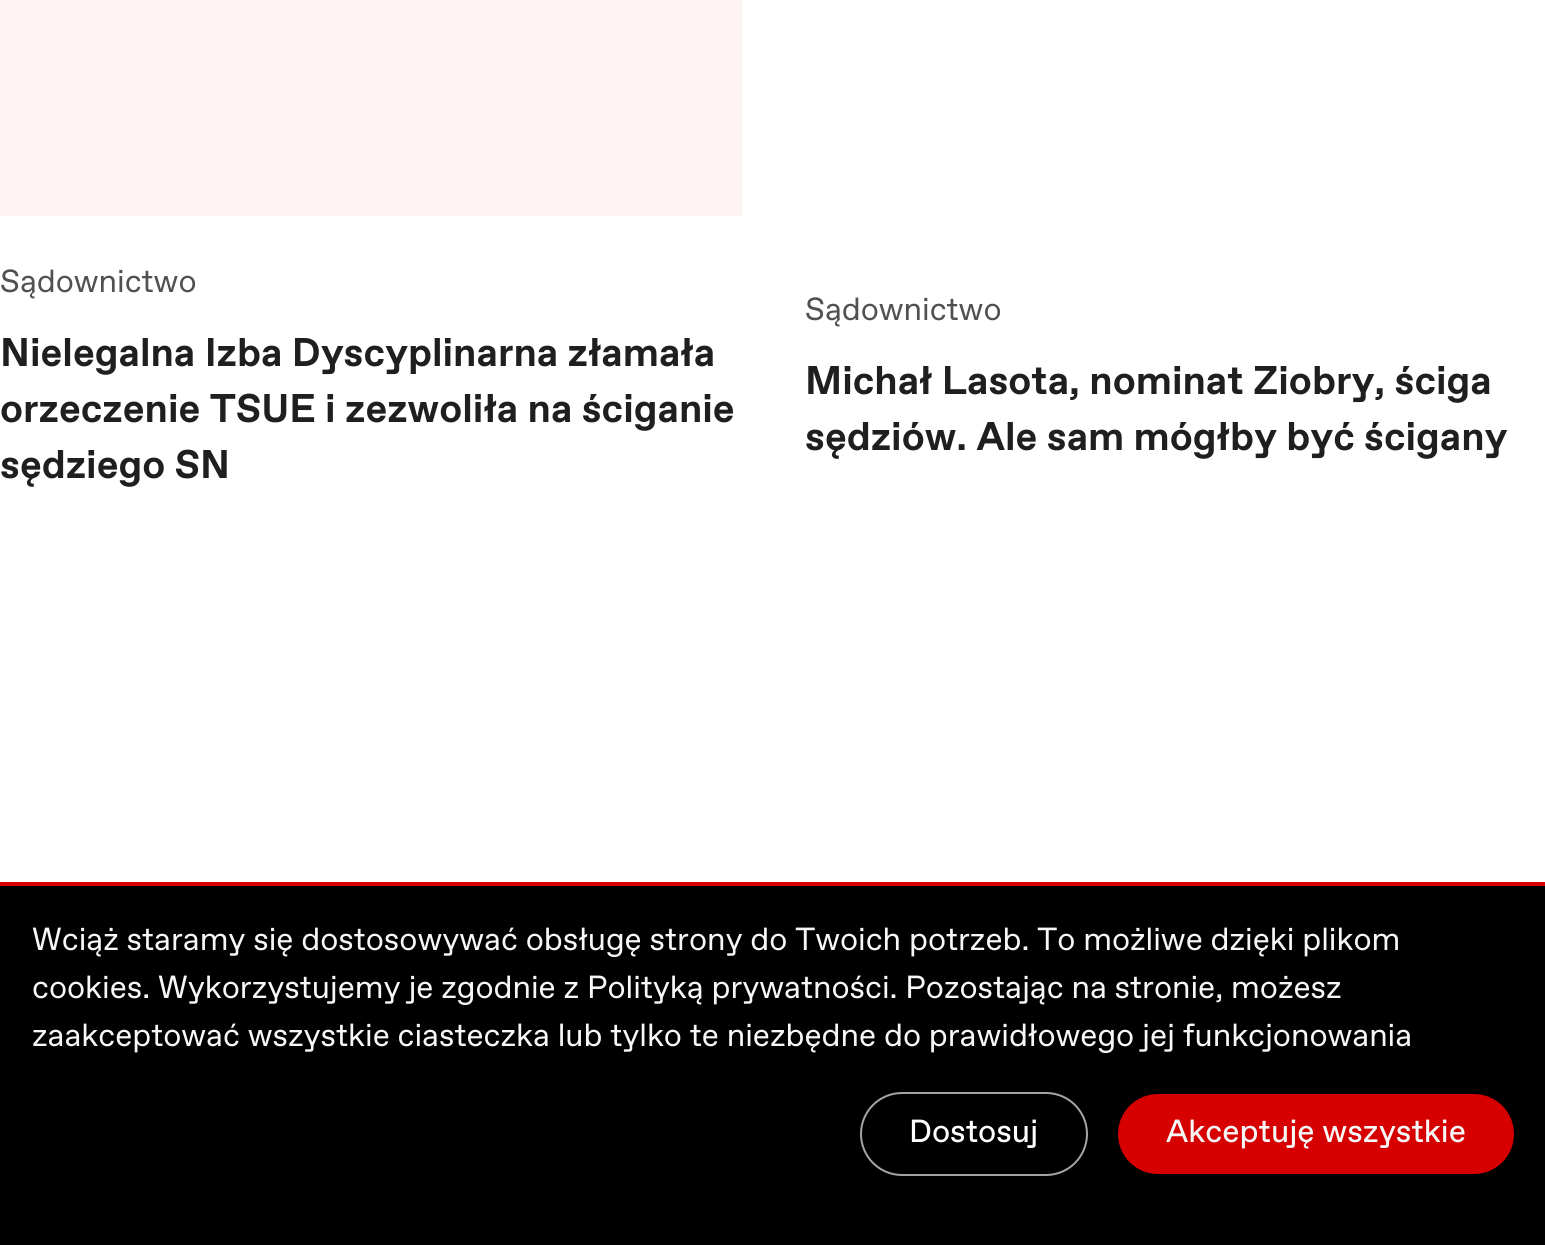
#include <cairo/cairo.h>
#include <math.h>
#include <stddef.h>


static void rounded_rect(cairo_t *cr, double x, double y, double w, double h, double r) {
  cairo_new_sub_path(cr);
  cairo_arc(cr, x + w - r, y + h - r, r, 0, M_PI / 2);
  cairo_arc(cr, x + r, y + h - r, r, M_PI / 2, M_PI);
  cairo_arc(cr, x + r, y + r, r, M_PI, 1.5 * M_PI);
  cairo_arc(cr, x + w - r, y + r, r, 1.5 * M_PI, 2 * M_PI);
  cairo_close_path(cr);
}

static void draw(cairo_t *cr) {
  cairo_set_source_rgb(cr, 1, 1, 1);
  cairo_paint(cr);
  cairo_set_source_rgb(cr, 254 / 255.0, 243 / 255.0, 243 / 255.0);
  cairo_rectangle(cr, 0, 0, 742, 216);
  cairo_fill(cr);
  cairo_set_source_rgb(cr, 0, 0, 0);
  cairo_rectangle(cr, 0, 886, 1545, 359);
  cairo_fill(cr);
  cairo_set_source_rgb(cr, 214 / 255.0, 0, 0);
  cairo_rectangle(cr, 0, 882, 1545, 4);
  cairo_fill(cr);
  rounded_rect(cr, 861, 1093, 226, 82, 41);
  cairo_set_source_rgb(cr, 164 / 255.0, 164 / 255.0, 164 / 255.0);
  cairo_stroke(cr);
  cairo_set_source_rgb(cr, 214 / 255.0, 0, 0);
  rounded_rect(cr, 1118, 1094, 396, 80, 40);
  cairo_fill(cr);
  cairo_select_font_face(cr, "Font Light", CAIRO_FONT_SLANT_NORMAL, CAIRO_FONT_WEIGHT_NORMAL);
  cairo_set_font_size(cr, 32);
  cairo_set_source_rgb(cr, 81 / 255.0, 81 / 255.0, 81 / 255.0);
  cairo_move_to(cr, 0, 292);
  cairo_show_text(cr, "Sądownictwo");
  cairo_select_font_face(cr, "Font", CAIRO_FONT_SLANT_NORMAL, CAIRO_FONT_WEIGHT_BOLD);
  cairo_set_font_size(cr, 40);
  cairo_set_source_rgb(cr, 31 / 255.0, 31 / 255.0, 31 / 255.0);
  cairo_move_to(cr, 0, 366);
  cairo_show_text(cr, "Nielegalna Izba Dyscyplinarna złamała");
  cairo_move_to(cr, 0, 422);
  cairo_show_text(cr, "orzeczenie TSUE i zezwoliła na ściganie");
  cairo_move_to(cr, 0, 478);
  cairo_show_text(cr, "sędziego SN");
  cairo_select_font_face(cr, "Font Light", CAIRO_FONT_SLANT_NORMAL, CAIRO_FONT_WEIGHT_NORMAL);
  cairo_set_font_size(cr, 32);
  cairo_set_source_rgb(cr, 81 / 255.0, 81 / 255.0, 81 / 255.0);
  cairo_move_to(cr, 805, 320);
  cairo_show_text(cr, "Sądownictwo");
  cairo_select_font_face(cr, "Font", CAIRO_FONT_SLANT_NORMAL, CAIRO_FONT_WEIGHT_BOLD);
  cairo_set_font_size(cr, 40);
  cairo_set_source_rgb(cr, 31 / 255.0, 31 / 255.0, 31 / 255.0);
  cairo_move_to(cr, 805, 394);
  cairo_show_text(cr, "Michał Lasota, nominat Ziobry, ściga");
  cairo_move_to(cr, 805, 450);
  cairo_show_text(cr, "sędziów. Ale sam mógłby być ścigany");
  cairo_select_font_face(cr, "Font Light", CAIRO_FONT_SLANT_NORMAL, CAIRO_FONT_WEIGHT_NORMAL);
  cairo_set_font_size(cr, 32);
  cairo_set_source_rgb(cr, 247 / 255.0, 247 / 255.0, 247 / 255.0);
  cairo_move_to(cr, 32, 950);
  cairo_show_text(cr, "Wciąż staramy się dostosowywać obsługę strony do Twoich potrzeb. To możliwe dzięki plikom");
  cairo_move_to(cr, 32, 998);
  cairo_show_text(cr, "cookies. Wykorzystujemy je zgodnie z Polityką prywatności. Pozostając na stronie, możesz");
  cairo_move_to(cr, 32, 1046);
  cairo_show_text(cr, "zaakceptować wszystkie ciasteczka lub tylko te niezbędne do prawidłowego jej funkcjonowania");
  cairo_select_font_face(cr, "Font", CAIRO_FONT_SLANT_NORMAL, CAIRO_FONT_WEIGHT_NORMAL);
  cairo_set_source_rgb(cr, 1, 1, 1);
  cairo_move_to(cr, 909, 1142);
  cairo_show_text(cr, "Dostosuj");
  cairo_set_source_rgb(cr, 247 / 255.0, 247 / 255.0, 247 / 255.0);
  cairo_move_to(cr, 1166, 1142);
  cairo_show_text(cr, "Akceptuję wszystkie");
}

int main(void) {
  cairo_surface_t *surface = cairo_image_surface_create(CAIRO_FORMAT_RGB24, 1545, 1245);
  cairo_t *cr = cairo_create(surface);
  cairo_font_options_t *options = cairo_font_options_create();
  cairo_font_options_set_hint_metrics(options, CAIRO_HINT_METRICS_OFF);
  cairo_font_options_set_hint_style(options, CAIRO_HINT_STYLE_NONE);
  cairo_set_font_options(cr, options);
  cairo_set_miter_limit(cr, 4);
  draw(cr);
  cairo_surface_write_to_png(surface, "out.png");
  cairo_font_options_destroy(options);
  cairo_destroy(cr);
  cairo_surface_destroy(surface);
  return 0;
}
